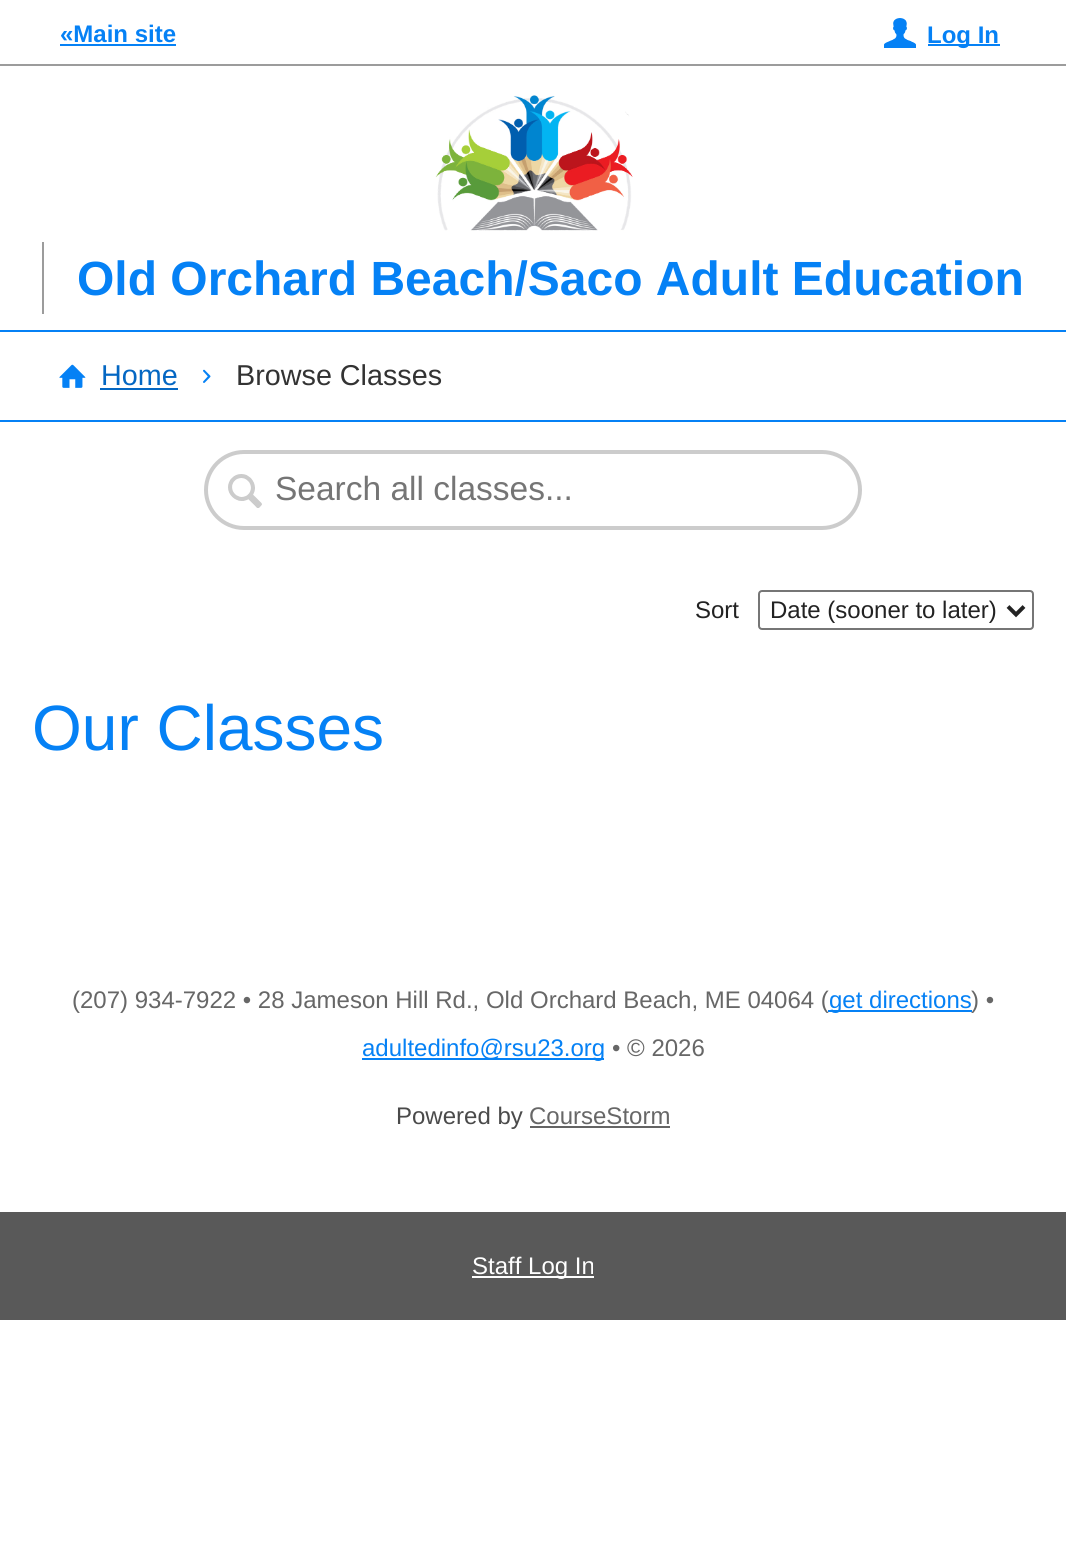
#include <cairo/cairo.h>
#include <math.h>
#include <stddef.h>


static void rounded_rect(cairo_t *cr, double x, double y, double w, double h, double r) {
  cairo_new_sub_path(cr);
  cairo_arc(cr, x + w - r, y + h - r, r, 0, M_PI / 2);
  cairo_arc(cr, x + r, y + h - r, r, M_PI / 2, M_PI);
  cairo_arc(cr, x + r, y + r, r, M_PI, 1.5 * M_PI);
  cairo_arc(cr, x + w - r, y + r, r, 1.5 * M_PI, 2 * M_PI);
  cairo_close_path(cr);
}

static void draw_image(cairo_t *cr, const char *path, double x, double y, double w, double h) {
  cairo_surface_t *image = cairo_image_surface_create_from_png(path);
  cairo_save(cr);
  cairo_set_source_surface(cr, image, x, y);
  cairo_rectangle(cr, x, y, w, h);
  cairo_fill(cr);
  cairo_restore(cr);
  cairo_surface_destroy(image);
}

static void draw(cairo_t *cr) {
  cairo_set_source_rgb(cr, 1, 1, 1);
  cairo_paint(cr);
  cairo_set_source_rgb(cr, 156 / 255.0, 156 / 255.0, 156 / 255.0);
  cairo_rectangle(cr, 0, 64, 1066, 2);
  cairo_fill(cr);
  cairo_set_source_rgb(cr, 5 / 255.0, 129 / 255.0, 245 / 255.0);
  cairo_rectangle(cr, 60, 44, 116, 2);
  cairo_fill(cr);
  draw_image(cr, "images/1.png", 884, 18, 32, 30);
  cairo_rectangle(cr, 928, 44, 72, 2);
  cairo_fill(cr);
  cairo_rectangle(cr, 0, 330, 1066, 2);
  cairo_fill(cr);
  draw_image(cr, "images/2.png", 435, 95, 198, 136);
  cairo_set_source_rgb(cr, 156 / 255.0, 156 / 255.0, 156 / 255.0);
  cairo_rectangle(cr, 42, 242, 2, 72);
  cairo_fill(cr);
  cairo_set_source_rgb(cr, 5 / 255.0, 129 / 255.0, 245 / 255.0);
  cairo_rectangle(cr, 0, 420, 1066, 2);
  cairo_fill(cr);
  draw_image(cr, "images/3.png", 59, 364, 27, 24);
  cairo_set_source_rgb(cr, 4 / 255.0, 103 / 255.0, 195 / 255.0);
  cairo_rectangle(cr, 100, 388, 78, 2);
  cairo_fill(cr);
  draw_image(cr, "images/4.png", 203, 369, 8, 14);
  rounded_rect(cr, 206, 452, 654, 76, 38);
  cairo_set_source_rgb(cr, 204 / 255.0, 204 / 255.0, 204 / 255.0);
  cairo_set_line_width(cr, 4);
  cairo_stroke(cr);
  draw_image(cr, "images/5.png", 228, 474, 34, 34);
  rounded_rect(cr, 759, 591, 274, 38, 3);
  cairo_set_source_rgb(cr, 118 / 255.0, 118 / 255.0, 118 / 255.0);
  cairo_set_line_width(cr, 2);
  cairo_stroke(cr);
  cairo_new_path(cr);
  cairo_move_to(cr, 1008, 606.5);
  cairo_line_to(cr, 1016, 614.5);
  cairo_line_to(cr, 1024, 606.5);
  cairo_set_source_rgb(cr, 34 / 255.0, 34 / 255.0, 34 / 255.0);
  cairo_set_line_width(cr, 4);
  cairo_stroke(cr);
  cairo_set_source_rgb(cr, 5 / 255.0, 129 / 255.0, 245 / 255.0);
  cairo_rectangle(cr, 362, 1058, 242, 2);
  cairo_fill(cr);
  cairo_set_source_rgb(cr, 100 / 255.0, 100 / 255.0, 100 / 255.0);
  cairo_rectangle(cr, 530, 1126, 140, 2);
  cairo_fill(cr);
  cairo_set_source_rgb(cr, 89 / 255.0, 89 / 255.0, 89 / 255.0);
  cairo_rectangle(cr, 0, 1212, 1066, 108);
  cairo_fill(cr);
  cairo_set_source_rgb(cr, 1, 1, 1);
  cairo_rectangle(cr, 472, 1276, 122, 2);
  cairo_fill(cr);
  cairo_select_font_face(cr, "Liberation Sans", CAIRO_FONT_SLANT_NORMAL, CAIRO_FONT_WEIGHT_BOLD);
  cairo_set_font_size(cr, 24);
  cairo_set_source_rgb(cr, 5 / 255.0, 129 / 255.0, 245 / 255.0);
  cairo_move_to(cr, 60, 42);
  cairo_show_text(cr, "«Main site");
  cairo_move_to(cr, 927, 43);
  cairo_show_text(cr, "Log In");
  cairo_set_font_size(cr, 48);
  cairo_move_to(cr, 77, 295);
  cairo_show_text(cr, "Old Orchard Beach/Saco Adult Education");
  cairo_select_font_face(cr, "Liberation Sans", CAIRO_FONT_SLANT_NORMAL, CAIRO_FONT_WEIGHT_NORMAL);
  cairo_set_font_size(cr, 28.75);
  cairo_set_source_rgb(cr, 4 / 255.0, 103 / 255.0, 195 / 255.0);
  cairo_move_to(cr, 101, 385);
  cairo_show_text(cr, "Home");
  cairo_set_source_rgb(cr, 51 / 255.0, 51 / 255.0, 51 / 255.0);
  cairo_move_to(cr, 236, 385);
  cairo_show_text(cr, "Browse Classes");
  cairo_set_font_size(cr, 33.5);
  cairo_set_source_rgb(cr, 117 / 255.0, 117 / 255.0, 117 / 255.0);
  cairo_move_to(cr, 275, 500);
  cairo_show_text(cr, "Search all classes...");
  cairo_set_font_size(cr, 24);
  cairo_set_source_rgb(cr, 34 / 255.0, 34 / 255.0, 34 / 255.0);
  cairo_move_to(cr, 695, 618);
  cairo_show_text(cr, "Sort");
  cairo_move_to(cr, 770, 618);
  cairo_show_text(cr, "Date (sooner to later)");
  cairo_set_font_size(cr, 64);
  cairo_set_source_rgb(cr, 5 / 255.0, 129 / 255.0, 245 / 255.0);
  cairo_move_to(cr, 32, 750);
  cairo_show_text(cr, "Our Classes");
  cairo_set_font_size(cr, 24);
  cairo_set_source_rgb(cr, 103 / 255.0, 103 / 255.0, 103 / 255.0);
  cairo_move_to(cr, 72, 1008);
  cairo_show_text(cr, "(207) 934-7922 • 28 Jameson Hill Rd., Old Orchard Beach, ME 04064 (");
  cairo_set_source_rgb(cr, 5 / 255.0, 129 / 255.0, 245 / 255.0);
  cairo_rectangle(cr, 828, 1010, 144, 2);
  cairo_fill(cr);
  cairo_move_to(cr, 829, 1008);
  cairo_show_text(cr, "get directions");
  cairo_set_source_rgb(cr, 103 / 255.0, 103 / 255.0, 103 / 255.0);
  cairo_move_to(cr, 971, 1008);
  cairo_show_text(cr, ") •");
  cairo_set_source_rgb(cr, 5 / 255.0, 129 / 255.0, 245 / 255.0);
  cairo_move_to(cr, 362, 1056);
  cairo_show_text(cr, "adultedinfo@rsu23.org");
  cairo_set_source_rgb(cr, 103 / 255.0, 103 / 255.0, 103 / 255.0);
  cairo_move_to(cr, 612, 1056);
  cairo_show_text(cr, "• © 2026");
  cairo_set_source_rgb(cr, 74 / 255.0, 74 / 255.0, 74 / 255.0);
  cairo_move_to(cr, 396, 1124);
  cairo_show_text(cr, "Powered by");
  cairo_set_source_rgb(cr, 103 / 255.0, 103 / 255.0, 103 / 255.0);
  cairo_move_to(cr, 529, 1124);
  cairo_show_text(cr, "CourseStorm");
  cairo_set_source_rgb(cr, 1, 1, 1);
  cairo_move_to(cr, 472, 1274);
  cairo_show_text(cr, "Staff Log In");
}

int main(void) {
  cairo_surface_t *surface = cairo_image_surface_create(CAIRO_FORMAT_RGB24, 1066, 1561);
  cairo_t *cr = cairo_create(surface);
  cairo_font_options_t *options = cairo_font_options_create();
  cairo_font_options_set_hint_metrics(options, CAIRO_HINT_METRICS_OFF);
  cairo_font_options_set_hint_style(options, CAIRO_HINT_STYLE_NONE);
  cairo_set_font_options(cr, options);
  cairo_set_miter_limit(cr, 4);
  draw(cr);
  cairo_surface_write_to_png(surface, "out.png");
  cairo_font_options_destroy(options);
  cairo_destroy(cr);
  cairo_surface_destroy(surface);
  return 0;
}
